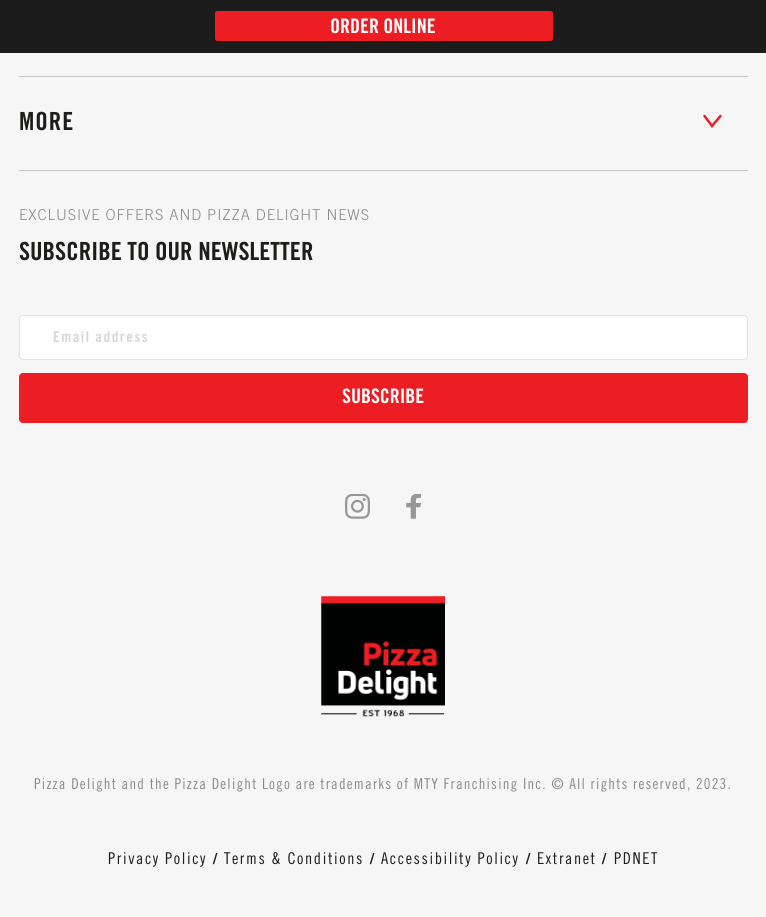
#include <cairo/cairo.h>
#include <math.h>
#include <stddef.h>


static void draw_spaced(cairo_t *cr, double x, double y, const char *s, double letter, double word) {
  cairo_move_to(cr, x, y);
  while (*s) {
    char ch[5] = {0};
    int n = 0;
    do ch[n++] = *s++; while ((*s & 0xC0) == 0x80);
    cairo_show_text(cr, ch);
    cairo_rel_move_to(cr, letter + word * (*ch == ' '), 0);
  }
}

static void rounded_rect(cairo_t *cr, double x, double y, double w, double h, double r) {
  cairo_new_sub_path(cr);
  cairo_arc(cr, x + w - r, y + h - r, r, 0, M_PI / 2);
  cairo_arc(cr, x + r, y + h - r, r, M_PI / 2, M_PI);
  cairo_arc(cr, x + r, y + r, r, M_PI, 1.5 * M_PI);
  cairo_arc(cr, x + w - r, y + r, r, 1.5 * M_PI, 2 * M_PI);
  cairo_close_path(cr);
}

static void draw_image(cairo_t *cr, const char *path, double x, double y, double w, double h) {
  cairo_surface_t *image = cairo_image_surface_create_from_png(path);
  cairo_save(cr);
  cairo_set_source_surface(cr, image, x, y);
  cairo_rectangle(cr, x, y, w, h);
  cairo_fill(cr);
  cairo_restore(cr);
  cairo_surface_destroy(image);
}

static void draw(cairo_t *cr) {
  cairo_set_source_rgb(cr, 246 / 255.0, 246 / 255.0, 246 / 255.0);
  cairo_paint(cr);
  cairo_set_source_rgb(cr, 28 / 255.0, 28 / 255.0, 28 / 255.0);
  cairo_rectangle(cr, 0, 0, 766, 53);
  cairo_fill(cr);
  cairo_set_source_rgb(cr, 237 / 255.0, 29 / 255.0, 36 / 255.0);
  rounded_rect(cr, 215.5, 11.5, 337, 29, 2);
  cairo_fill_preserve(cr);
  cairo_set_line_width(cr, 1);
  cairo_stroke(cr);
  cairo_set_source_rgb(cr, 199 / 255.0, 199 / 255.0, 199 / 255.0);
  cairo_rectangle(cr, 19, 76, 729, 1);
  cairo_fill(cr);
  cairo_rectangle(cr, 19, 170, 729, 1);
  cairo_fill(cr);
  cairo_new_path(cr);
  cairo_move_to(cr, 720.5, 116);
  cairo_line_to(cr, 712, 126);
  cairo_line_to(cr, 704.5, 116);
  cairo_set_source_rgb(cr, 237 / 255.0, 29 / 255.0, 36 / 255.0);
  cairo_set_line_width(cr, 2.5);
  cairo_set_line_cap(cr, CAIRO_LINE_CAP_ROUND);
  cairo_stroke(cr);
  cairo_set_source_rgb(cr, 1, 1, 1);
  rounded_rect(cr, 19.5, 315.5, 728, 44, 3.5);
  cairo_fill_preserve(cr);
  cairo_set_source_rgb(cr, 226 / 255.0, 226 / 255.0, 226 / 255.0);
  cairo_set_line_width(cr, 1);
  cairo_set_line_cap(cr, CAIRO_LINE_CAP_BUTT);
  cairo_stroke(cr);
  cairo_set_source_rgb(cr, 237 / 255.0, 29 / 255.0, 36 / 255.0);
  rounded_rect(cr, 19.5, 373.5, 728, 49, 3.5);
  cairo_fill_preserve(cr);
  cairo_stroke(cr);
  draw_image(cr, "images/1.png", 345, 494, 25, 25);
  draw_image(cr, "images/2.png", 406, 494, 15, 25);
  draw_image(cr, "images/3.png", 321, 596, 124, 121);
  cairo_select_font_face(cr, "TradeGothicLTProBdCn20", CAIRO_FONT_SLANT_NORMAL, CAIRO_FONT_WEIGHT_NORMAL);
  cairo_set_font_size(cr, 20);
  cairo_set_source_rgb(cr, 1, 1, 1);
  cairo_move_to(cr, 330, 33);
  cairo_show_text(cr, "ORDER ONLINE");
  cairo_set_font_size(cr, 25);
  cairo_set_source_rgb(cr, 29 / 255.0, 29 / 255.0, 27 / 255.0);
  draw_spaced(cr, 19, 130, "MORE", 1, 0);
  cairo_select_font_face(cr, "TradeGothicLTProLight", CAIRO_FONT_SLANT_NORMAL, CAIRO_FONT_WEIGHT_NORMAL);
  cairo_set_font_size(cr, 15);
  cairo_set_source_rgb(cr, 138 / 255.0, 138 / 255.0, 137 / 255.0);
  draw_spaced(cr, 19, 220, "EXCLUSIVE OFFERS AND PIZZA DELIGHT NEWS", 0.9, 0);
  cairo_select_font_face(cr, "TradeGothicLTProBdCn20", CAIRO_FONT_SLANT_NORMAL, CAIRO_FONT_WEIGHT_NORMAL);
  cairo_set_font_size(cr, 25);
  cairo_set_source_rgb(cr, 29 / 255.0, 29 / 255.0, 27 / 255.0);
  cairo_move_to(cr, 19, 260);
  cairo_show_text(cr, "SUBSCRIBE TO OUR NEWSLETTER");
  cairo_set_font_size(cr, 15);
  cairo_set_source_rgb(cr, 214 / 255.0, 214 / 255.0, 214 / 255.0);
  draw_spaced(cr, 53, 342, "Email address", 1.5, 0);
  cairo_set_font_size(cr, 20);
  cairo_set_source_rgb(cr, 1, 1, 1);
  cairo_move_to(cr, 342, 403);
  cairo_show_text(cr, "SUBSCRIBE");
  cairo_select_font_face(cr, "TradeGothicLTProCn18", CAIRO_FONT_SLANT_NORMAL, CAIRO_FONT_WEIGHT_NORMAL);
  cairo_set_font_size(cr, 15);
  cairo_set_source_rgb(cr, 138 / 255.0, 138 / 255.0, 137 / 255.0);
  draw_spaced(cr, 34, 789, "Pizza Delight and the Pizza Delight Logo are trademarks of MTY Franchising Inc. © All rights reserved, 2023.", 1.2, 0);
  cairo_set_font_size(cr, 16.25);
  cairo_set_source_rgb(cr, 29 / 255.0, 29 / 255.0, 27 / 255.0);
  draw_spaced(cr, 108, 864, "Privacy Policy", 1.6, 0);
  cairo_select_font_face(cr, "TradeGothicLTProBdCn20", CAIRO_FONT_SLANT_NORMAL, CAIRO_FONT_WEIGHT_NORMAL);
  cairo_set_font_size(cr, 15);
  draw_spaced(cr, 213, 864, "/", 1.5, 0);
  cairo_select_font_face(cr, "TradeGothicLTProCn18", CAIRO_FONT_SLANT_NORMAL, CAIRO_FONT_WEIGHT_NORMAL);
  cairo_set_font_size(cr, 16.25);
  draw_spaced(cr, 224, 864, "Terms & Conditions", 1.6, 0);
  cairo_select_font_face(cr, "TradeGothicLTProBdCn20", CAIRO_FONT_SLANT_NORMAL, CAIRO_FONT_WEIGHT_NORMAL);
  cairo_set_font_size(cr, 15);
  draw_spaced(cr, 370, 864, "/", 1.5, 0);
  cairo_select_font_face(cr, "TradeGothicLTProCn18", CAIRO_FONT_SLANT_NORMAL, CAIRO_FONT_WEIGHT_NORMAL);
  cairo_set_font_size(cr, 16.25);
  draw_spaced(cr, 381, 864, "Accessibility Policy", 1.6, 0);
  cairo_select_font_face(cr, "TradeGothicLTProBdCn20", CAIRO_FONT_SLANT_NORMAL, CAIRO_FONT_WEIGHT_NORMAL);
  cairo_set_font_size(cr, 15);
  draw_spaced(cr, 526, 864, "/", 1.5, 0);
  cairo_select_font_face(cr, "TradeGothicLTProCn18", CAIRO_FONT_SLANT_NORMAL, CAIRO_FONT_WEIGHT_NORMAL);
  cairo_set_font_size(cr, 16.25);
  draw_spaced(cr, 537, 864, "Extranet", 1.6, 0);
  cairo_select_font_face(cr, "TradeGothicLTProBdCn20", CAIRO_FONT_SLANT_NORMAL, CAIRO_FONT_WEIGHT_NORMAL);
  cairo_set_font_size(cr, 15);
  draw_spaced(cr, 602, 864, "/", 1.5, 0);
  cairo_select_font_face(cr, "TradeGothicLTProCn18", CAIRO_FONT_SLANT_NORMAL, CAIRO_FONT_WEIGHT_NORMAL);
  cairo_set_font_size(cr, 16.25);
  draw_spaced(cr, 614, 864, "PDNET", 1.6, 0);
}

int main(void) {
  cairo_surface_t *surface = cairo_image_surface_create(CAIRO_FORMAT_RGB24, 766, 917);
  cairo_t *cr = cairo_create(surface);
  cairo_font_options_t *options = cairo_font_options_create();
  cairo_font_options_set_hint_metrics(options, CAIRO_HINT_METRICS_OFF);
  cairo_font_options_set_hint_style(options, CAIRO_HINT_STYLE_NONE);
  cairo_set_font_options(cr, options);
  cairo_set_miter_limit(cr, 4);
  draw(cr);
  cairo_surface_write_to_png(surface, "out.png");
  cairo_font_options_destroy(options);
  cairo_destroy(cr);
  cairo_surface_destroy(surface);
  return 0;
}
